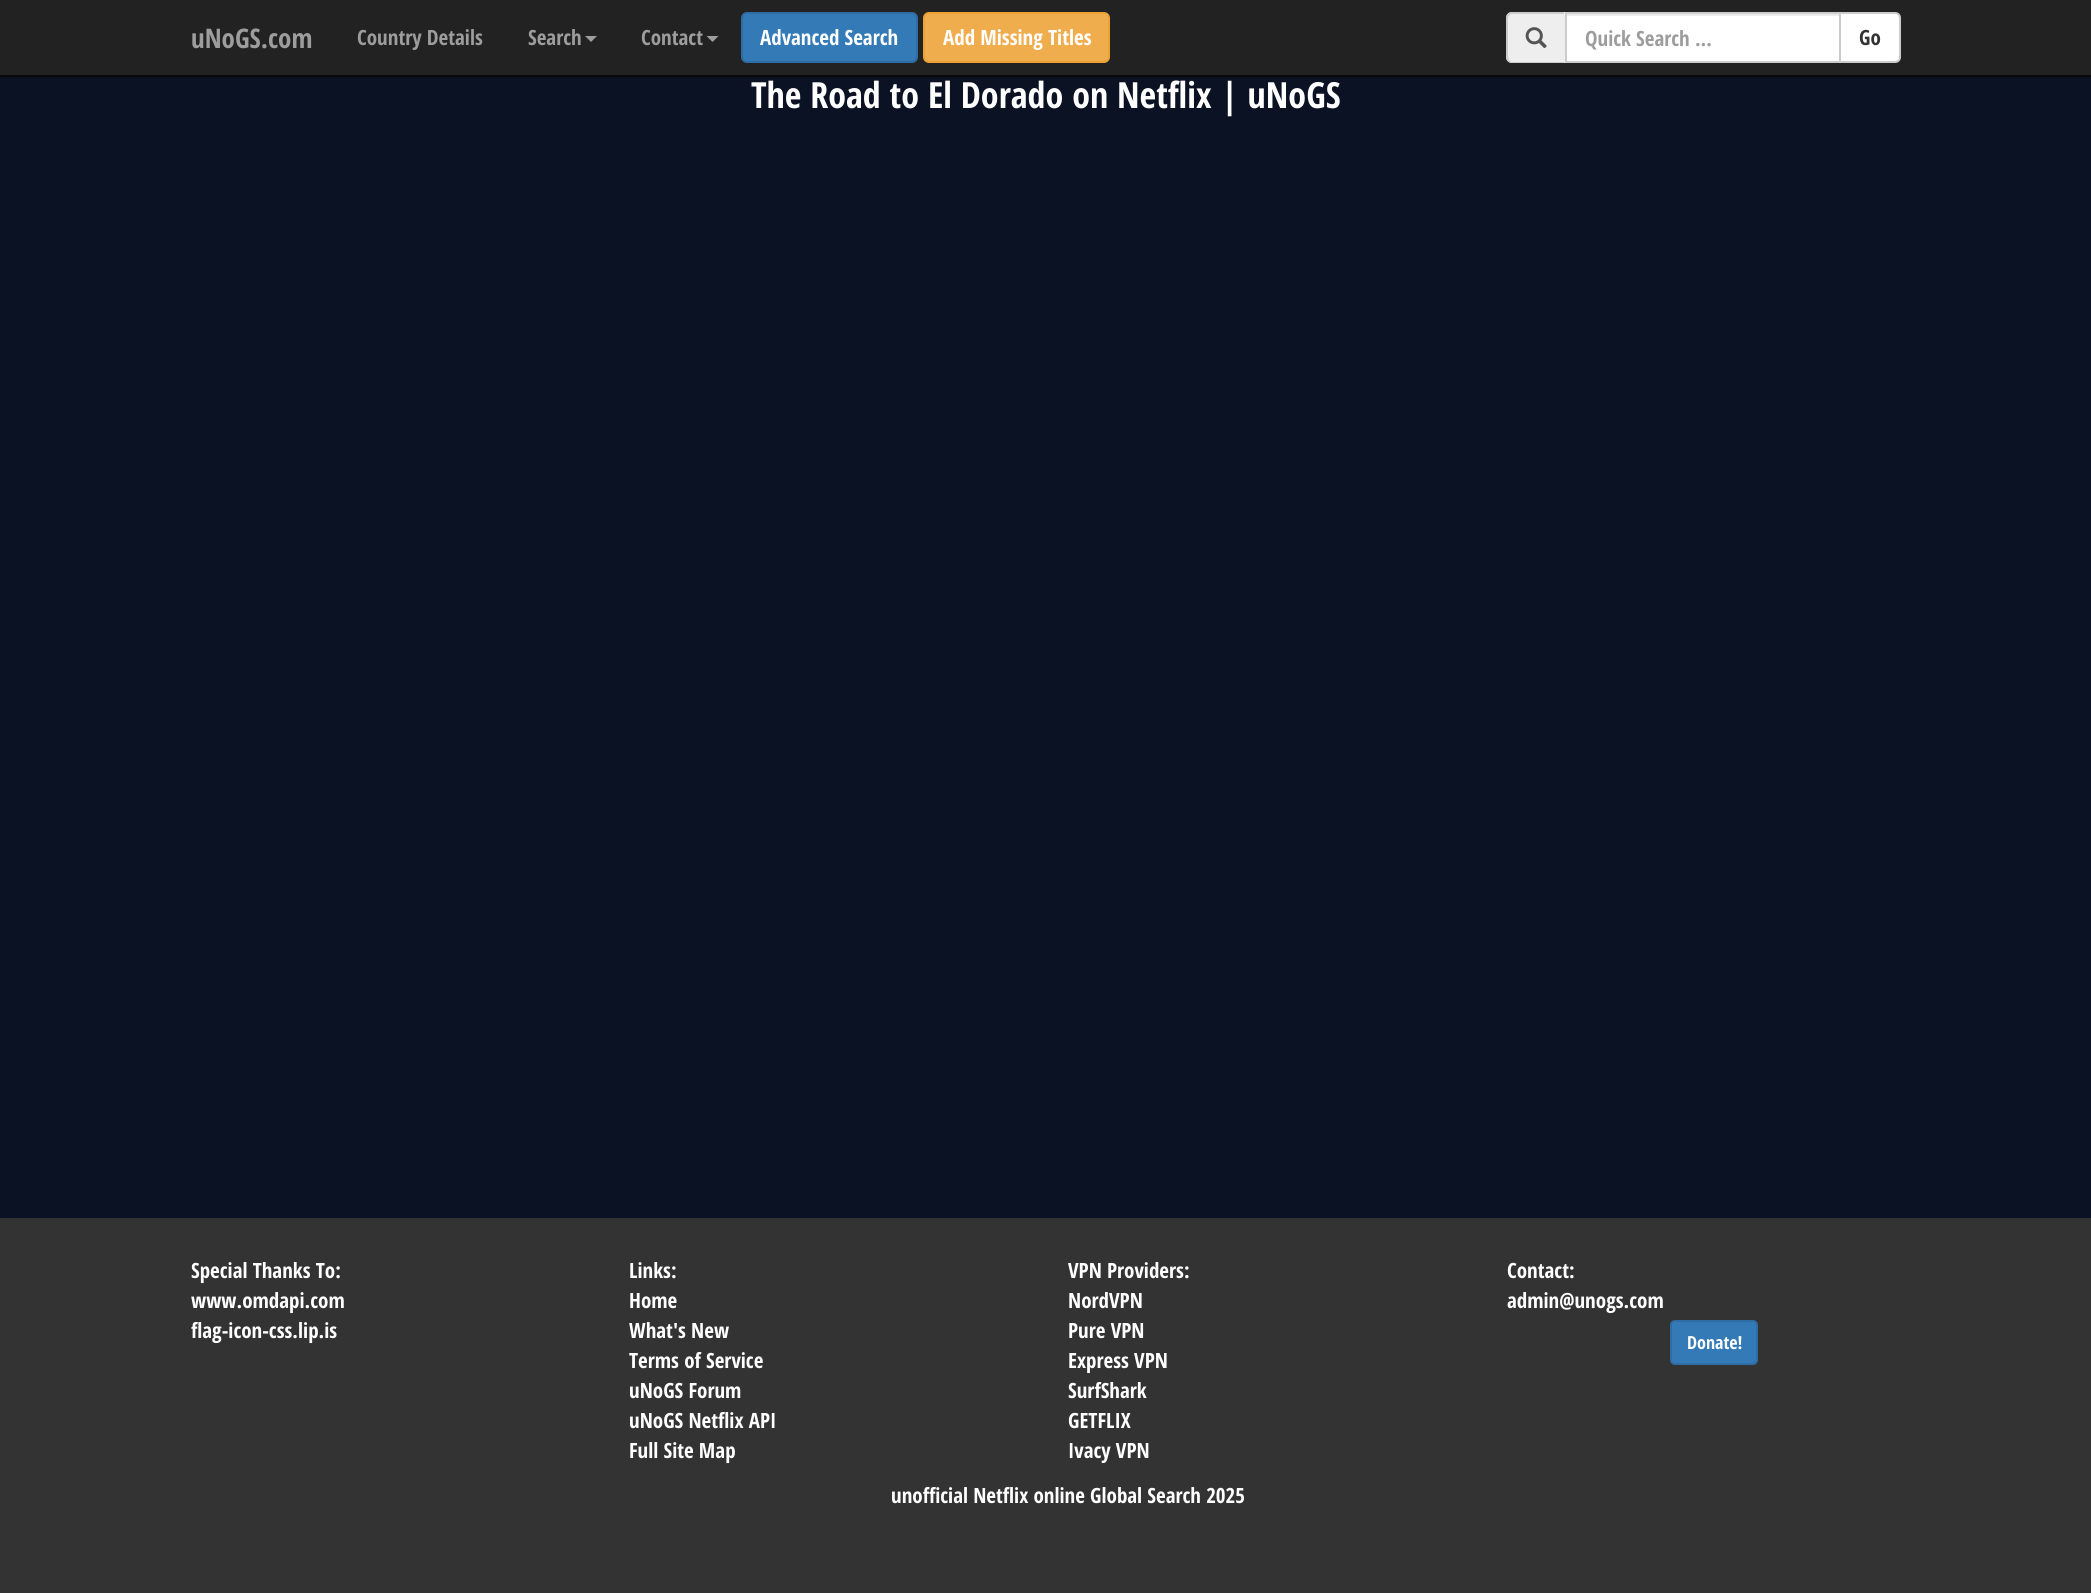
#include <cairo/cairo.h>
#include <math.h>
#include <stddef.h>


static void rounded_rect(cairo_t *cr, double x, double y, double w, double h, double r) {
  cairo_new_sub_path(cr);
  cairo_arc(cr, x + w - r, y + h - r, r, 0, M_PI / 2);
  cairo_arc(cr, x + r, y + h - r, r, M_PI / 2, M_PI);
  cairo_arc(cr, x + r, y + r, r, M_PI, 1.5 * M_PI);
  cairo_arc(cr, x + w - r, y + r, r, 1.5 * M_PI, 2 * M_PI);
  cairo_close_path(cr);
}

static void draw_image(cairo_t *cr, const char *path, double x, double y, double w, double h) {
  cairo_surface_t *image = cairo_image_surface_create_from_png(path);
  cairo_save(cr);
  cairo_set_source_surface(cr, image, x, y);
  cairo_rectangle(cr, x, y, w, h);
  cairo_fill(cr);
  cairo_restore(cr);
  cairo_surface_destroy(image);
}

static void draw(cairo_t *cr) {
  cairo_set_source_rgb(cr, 11 / 255.0, 18 / 255.0, 36 / 255.0);
  cairo_paint(cr);
  cairo_set_source_rgb(cr, 34 / 255.0, 34 / 255.0, 34 / 255.0);
  cairo_rectangle(cr, 0, 0, 2091, 75);
  cairo_fill(cr);
  cairo_set_source_rgb(cr, 8 / 255.0, 8 / 255.0, 8 / 255.0);
  cairo_rectangle(cr, 0, 75, 2091, 2);
  cairo_fill(cr);
  cairo_set_source_rgb(cr, 157 / 255.0, 157 / 255.0, 157 / 255.0);
  cairo_new_path(cr);
  cairo_move_to(cr, 585, 36);
  cairo_line_to(cr, 597, 36);
  cairo_line_to(cr, 591, 42);
  cairo_close_path(cr);
  cairo_fill(cr);
  cairo_new_path(cr);
  cairo_move_to(cr, 706.5, 36);
  cairo_line_to(cr, 718.5, 36);
  cairo_line_to(cr, 712.5, 42);
  cairo_close_path(cr);
  cairo_fill(cr);
  cairo_set_source_rgb(cr, 51 / 255.0, 122 / 255.0, 183 / 255.0);
  rounded_rect(cr, 742, 13, 175, 49, 5);
  cairo_fill_preserve(cr);
  cairo_set_source_rgb(cr, 46 / 255.0, 109 / 255.0, 164 / 255.0);
  cairo_stroke(cr);
  cairo_set_source_rgb(cr, 240 / 255.0, 173 / 255.0, 78 / 255.0);
  rounded_rect(cr, 924, 13, 185, 49, 5);
  cairo_fill_preserve(cr);
  cairo_set_source_rgb(cr, 238 / 255.0, 162 / 255.0, 54 / 255.0);
  cairo_stroke(cr);
  cairo_set_source_rgb(cr, 238 / 255.0, 238 / 255.0, 238 / 255.0);
  cairo_new_path(cr);
  cairo_move_to(cr, 1512, 12);
  cairo_line_to(cr, 1565, 12);
  cairo_line_to(cr, 1565, 63);
  cairo_line_to(cr, 1512, 63);
  cairo_curve_to(cr, 1508.5, 63, 1506, 60.5, 1506, 57);
  cairo_line_to(cr, 1506, 18);
  cairo_curve_to(cr, 1506, 14.5, 1508.5, 12, 1512, 12);
  cairo_close_path(cr);
  cairo_fill(cr);
  cairo_set_source_rgb(cr, 204 / 255.0, 204 / 255.0, 204 / 255.0);
  cairo_set_fill_rule(cr, CAIRO_FILL_RULE_EVEN_ODD);
  cairo_new_path(cr);
  cairo_move_to(cr, 1512, 12);
  cairo_line_to(cr, 1564, 12);
  cairo_line_to(cr, 1564, 63);
  cairo_line_to(cr, 1512, 63);
  cairo_curve_to(cr, 1509, 63, 1506, 60, 1506, 57);
  cairo_line_to(cr, 1506, 18);
  cairo_curve_to(cr, 1506, 15, 1509, 12, 1512, 12);
  cairo_close_path(cr);
  cairo_move_to(cr, 1512, 14);
  cairo_line_to(cr, 1564, 14);
  cairo_line_to(cr, 1564, 62);
  cairo_line_to(cr, 1512, 62);
  cairo_curve_to(cr, 1510, 62, 1508, 59, 1508, 57);
  cairo_line_to(cr, 1508, 18);
  cairo_curve_to(cr, 1508, 16, 1510, 14, 1512, 14);
  cairo_close_path(cr);
  cairo_fill(cr);
  draw_image(cr, "images/1.png", 1525, 27, 22, 22);
  cairo_set_source_rgb(cr, 1, 1, 1);
  cairo_rectangle(cr, 1567, 16, 272, 45);
  cairo_fill(cr);
  cairo_set_source_rgb(cr, 236 / 255.0, 236 / 255.0, 236 / 255.0);
  cairo_rectangle(cr, 1566, 14, 273, 2);
  cairo_fill(cr);
  cairo_rectangle(cr, 1566, 13, 274, 49);
  cairo_set_source_rgb(cr, 204 / 255.0, 204 / 255.0, 204 / 255.0);
  cairo_stroke(cr);
  cairo_set_source_rgb(cr, 1, 1, 1);
  cairo_new_path(cr);
  cairo_move_to(cr, 1840, 13);
  cairo_line_to(cr, 1895, 13);
  cairo_curve_to(cr, 1898, 13, 1900, 15, 1900, 18);
  cairo_line_to(cr, 1900, 57);
  cairo_curve_to(cr, 1900, 60, 1898, 62, 1895, 62);
  cairo_line_to(cr, 1840, 62);
  cairo_close_path(cr);
  cairo_fill_preserve(cr);
  cairo_set_source_rgb(cr, 204 / 255.0, 204 / 255.0, 204 / 255.0);
  cairo_stroke(cr);
  cairo_set_source_rgb(cr, 51 / 255.0, 51 / 255.0, 51 / 255.0);
  cairo_rectangle(cr, 0, 1218, 2091, 375);
  cairo_fill(cr);
  cairo_set_source_rgb(cr, 51 / 255.0, 122 / 255.0, 183 / 255.0);
  rounded_rect(cr, 1671, 1321, 86, 43, 4);
  cairo_fill_preserve(cr);
  cairo_set_source_rgb(cr, 46 / 255.0, 109 / 255.0, 164 / 255.0);
  cairo_stroke(cr);
  cairo_select_font_face(cr, "Open Sans Condensed", CAIRO_FONT_SLANT_NORMAL, CAIRO_FONT_WEIGHT_BOLD);
  cairo_set_font_size(cr, 27);
  cairo_set_source_rgb(cr, 157 / 255.0, 157 / 255.0, 157 / 255.0);
  cairo_move_to(cr, 191, 48);
  cairo_show_text(cr, "uNoGS.com");
  cairo_set_font_size(cr, 21);
  cairo_move_to(cr, 357, 45);
  cairo_show_text(cr, "Country Details");
  cairo_move_to(cr, 528, 45);
  cairo_show_text(cr, "Search");
  cairo_move_to(cr, 641, 45);
  cairo_show_text(cr, "Contact");
  cairo_set_source_rgb(cr, 1, 1, 1);
  cairo_move_to(cr, 760, 45);
  cairo_show_text(cr, "Advanced Search");
  cairo_move_to(cr, 943, 45);
  cairo_show_text(cr, "Add Missing Titles");
  cairo_set_source_rgb(cr, 157 / 255.0, 157 / 255.0, 157 / 255.0);
  cairo_move_to(cr, 1585, 46);
  cairo_show_text(cr, "Quick Search ...");
  cairo_set_source_rgb(cr, 51 / 255.0, 51 / 255.0, 51 / 255.0);
  cairo_move_to(cr, 1859, 45);
  cairo_show_text(cr, "Go");
  cairo_set_font_size(cr, 36);
  cairo_set_source_rgb(cr, 1, 1, 1);
  cairo_move_to(cr, 751, 108);
  cairo_show_text(cr, "The Road to El Dorado on Netflix | uNoGS");
  cairo_set_font_size(cr, 21);
  cairo_move_to(cr, 191, 1278);
  cairo_show_text(cr, "Special Thanks To:");
  cairo_move_to(cr, 191, 1308);
  cairo_show_text(cr, "www.omdapi.com");
  cairo_move_to(cr, 191, 1338);
  cairo_show_text(cr, "flag-icon-css.lip.is");
  cairo_move_to(cr, 629, 1278);
  cairo_show_text(cr, "Links:");
  cairo_move_to(cr, 629, 1308);
  cairo_show_text(cr, "Home");
  cairo_move_to(cr, 629, 1338);
  cairo_show_text(cr, "What's New");
  cairo_move_to(cr, 629, 1368);
  cairo_show_text(cr, "Terms of Service");
  cairo_move_to(cr, 629, 1398);
  cairo_show_text(cr, "uNoGS Forum");
  cairo_move_to(cr, 629, 1428);
  cairo_show_text(cr, "uNoGS Netflix API");
  cairo_move_to(cr, 629, 1458);
  cairo_show_text(cr, "Full Site Map");
  cairo_move_to(cr, 1068, 1278);
  cairo_show_text(cr, "VPN Providers:");
  cairo_move_to(cr, 1068, 1308);
  cairo_show_text(cr, "NordVPN");
  cairo_move_to(cr, 1068, 1338);
  cairo_show_text(cr, "Pure VPN");
  cairo_move_to(cr, 1068, 1368);
  cairo_show_text(cr, "Express VPN");
  cairo_move_to(cr, 1068, 1398);
  cairo_show_text(cr, "SurfShark");
  cairo_move_to(cr, 1068, 1428);
  cairo_show_text(cr, "GETFLIX");
  cairo_move_to(cr, 1068, 1458);
  cairo_show_text(cr, "Ivacy VPN");
  cairo_move_to(cr, 1507, 1278);
  cairo_show_text(cr, "Contact:");
  cairo_move_to(cr, 1507, 1308);
  cairo_show_text(cr, "admin@unogs.com");
  cairo_set_font_size(cr, 18);
  cairo_move_to(cr, 1687, 1349);
  cairo_show_text(cr, "Donate!");
  cairo_set_font_size(cr, 21);
  cairo_move_to(cr, 891, 1503);
  cairo_show_text(cr, "unofficial Netflix online Global Search 2025");
}

int main(void) {
  cairo_surface_t *surface = cairo_image_surface_create(CAIRO_FORMAT_RGB24, 2091, 1593);
  cairo_t *cr = cairo_create(surface);
  cairo_font_options_t *options = cairo_font_options_create();
  cairo_font_options_set_hint_metrics(options, CAIRO_HINT_METRICS_OFF);
  cairo_font_options_set_hint_style(options, CAIRO_HINT_STYLE_NONE);
  cairo_set_font_options(cr, options);
  cairo_set_miter_limit(cr, 4);
  draw(cr);
  cairo_surface_write_to_png(surface, "out.png");
  cairo_font_options_destroy(options);
  cairo_destroy(cr);
  cairo_surface_destroy(surface);
  return 0;
}
